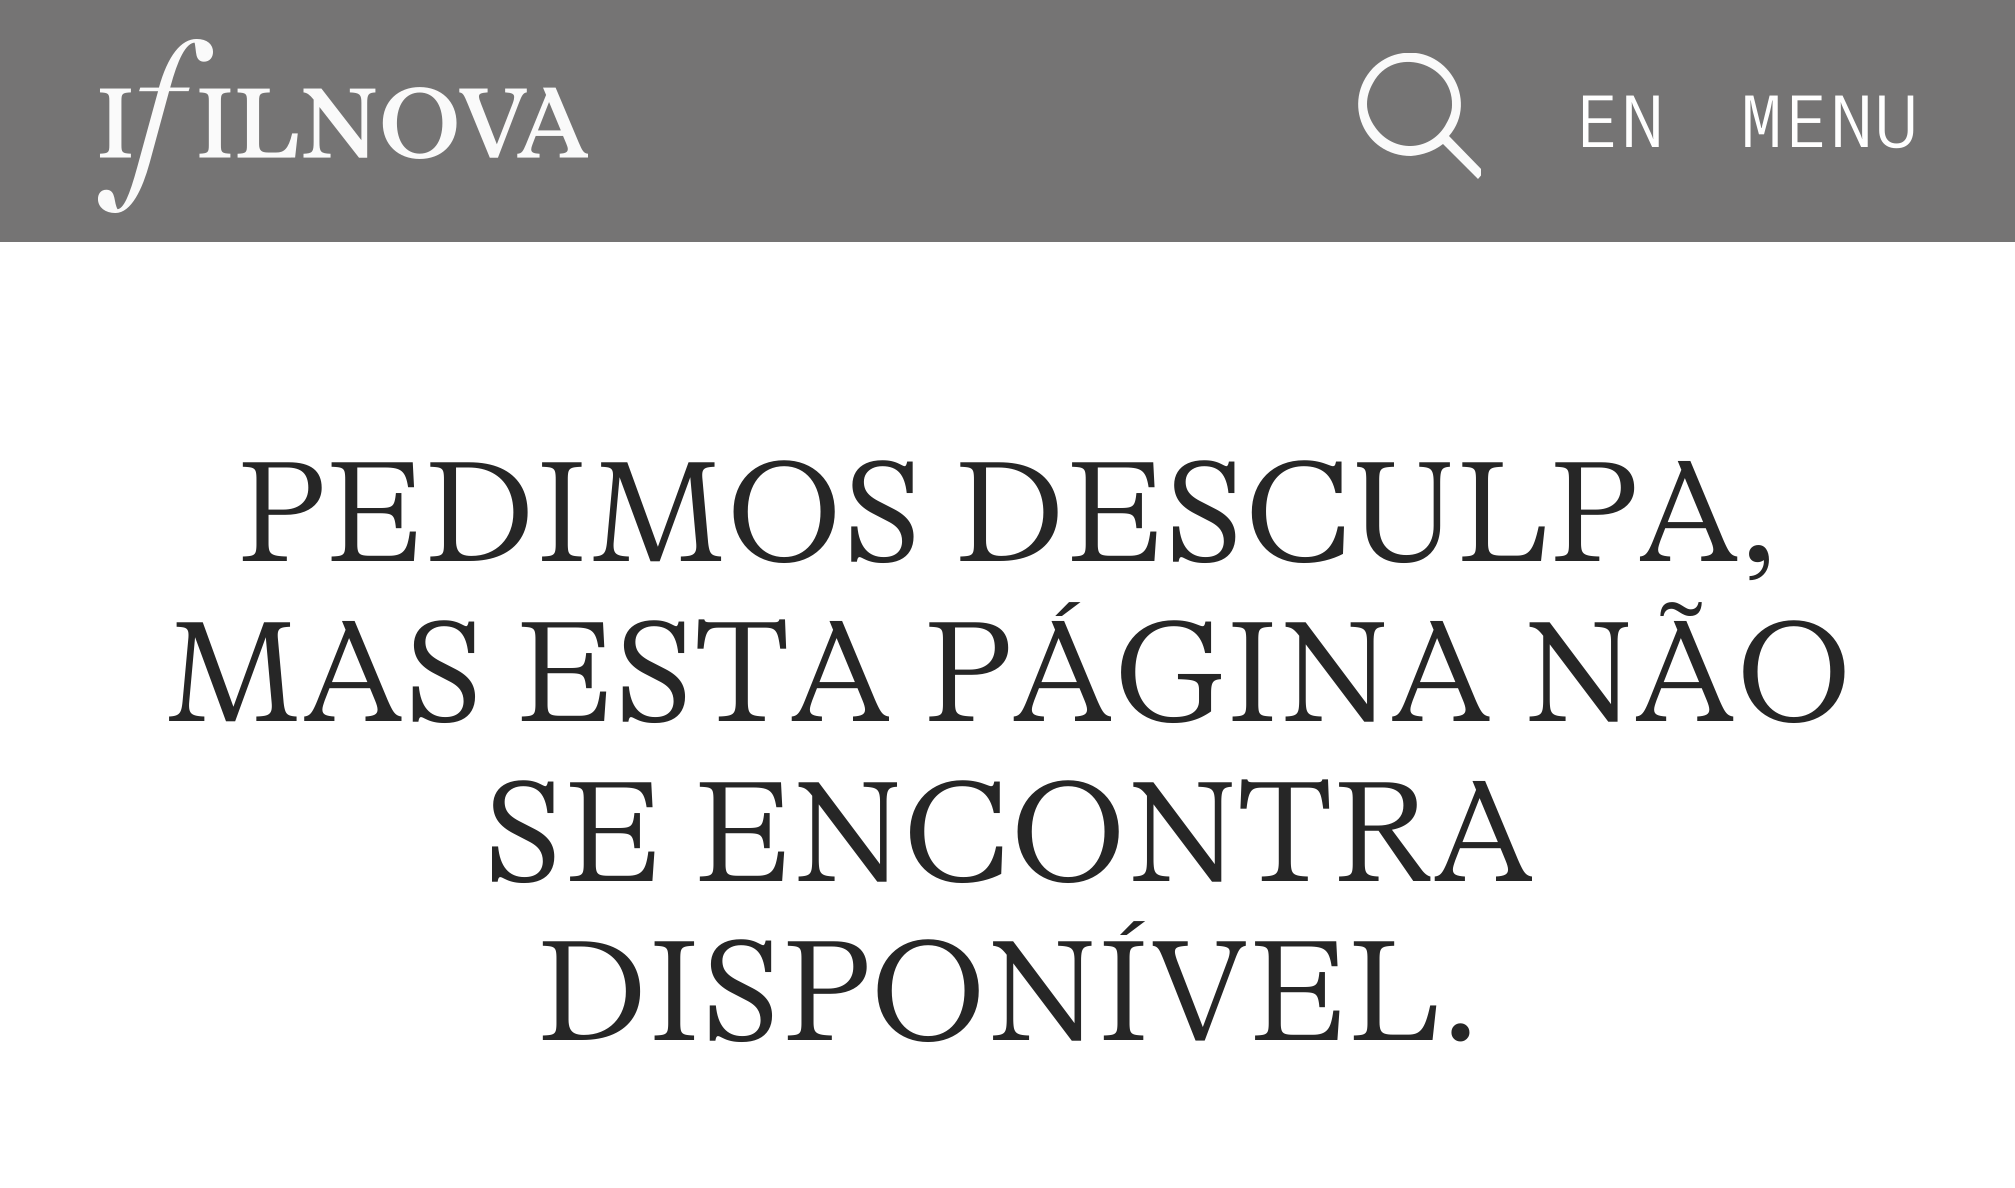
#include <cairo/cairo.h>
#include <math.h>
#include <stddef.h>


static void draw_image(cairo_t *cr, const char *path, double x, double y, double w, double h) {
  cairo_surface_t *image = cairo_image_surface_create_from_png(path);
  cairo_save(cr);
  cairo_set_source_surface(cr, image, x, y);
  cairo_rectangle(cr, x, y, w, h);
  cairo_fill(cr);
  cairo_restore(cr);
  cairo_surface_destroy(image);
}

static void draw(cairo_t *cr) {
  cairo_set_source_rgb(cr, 1, 1, 1);
  cairo_paint(cr);
  cairo_set_source_rgb(cr, 117 / 255.0, 116 / 255.0, 116 / 255.0);
  cairo_rectangle(cr, 0, 0, 2015, 242);
  cairo_fill(cr);
  draw_image(cr, "images/1.png", 98, 39, 490, 174);
  cairo_save(cr);
  cairo_rectangle(cr, 1358, 53, 123, 126);
  cairo_clip(cr);
  cairo_set_source_rgb(cr, 250 / 255.0, 250 / 255.0, 250 / 255.0);
  cairo_new_path(cr);
  cairo_move_to(cr, 1484, 172);
  cairo_line_to(cr, 1449, 136);
  cairo_curve_to(cr, 1480, 100, 1446, 43, 1398, 54);
  cairo_curve_to(cr, 1389, 56, 1380, 61, 1373, 68);
  cairo_curve_to(cr, 1341, 102, 1364, 156, 1411, 156);
  cairo_curve_to(cr, 1423, 155, 1434, 151, 1443, 144);
  cairo_line_to(cr, 1478, 179);
  cairo_close_path(cr);
  cairo_move_to(cr, 1367, 104);
  cairo_curve_to(cr, 1367, 97, 1369, 90, 1373, 83);
  cairo_curve_to(cr, 1393, 45, 1453, 62, 1452, 105);
  cairo_curve_to(cr, 1452, 113, 1449, 119, 1445, 126);
  cairo_curve_to(cr, 1429, 152, 1393, 153, 1375, 127);
  cairo_curve_to(cr, 1370, 120, 1367, 112, 1367, 104);
  cairo_close_path(cr);
  cairo_fill(cr);
  cairo_restore(cr);
  cairo_select_font_face(cr, "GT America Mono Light", CAIRO_FONT_SLANT_NORMAL, CAIRO_FONT_WEIGHT_NORMAL);
  cairo_set_font_size(cr, 72.5);
  cairo_set_source_rgb(cr, 1, 1, 1);
  cairo_move_to(cr, 1575, 147);
  cairo_show_text(cr, "EN");
  cairo_move_to(cr, 1739, 147);
  cairo_show_text(cr, "MENU");
  cairo_select_font_face(cr, "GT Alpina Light", CAIRO_FONT_SLANT_NORMAL, CAIRO_FONT_WEIGHT_NORMAL);
  cairo_set_font_size(cr, 145.2);
  cairo_set_source_rgb(cr, 38 / 255.0, 38 / 255.0, 38 / 255.0);
  cairo_move_to(cr, 236, 561);
  cairo_show_text(cr, "PEDIMOS DESCULPA,");
  cairo_move_to(cr, 164, 721);
  cairo_show_text(cr, "MAS ESTA PÁGINA NÃO");
  cairo_move_to(cr, 483, 881);
  cairo_show_text(cr, "SE ENCONTRA");
  cairo_move_to(cr, 536, 1040);
  cairo_show_text(cr, "DISPONÍVEL.");
}

int main(void) {
  cairo_surface_t *surface = cairo_image_surface_create(CAIRO_FORMAT_RGB24, 2015, 1188);
  cairo_t *cr = cairo_create(surface);
  cairo_font_options_t *options = cairo_font_options_create();
  cairo_font_options_set_hint_metrics(options, CAIRO_HINT_METRICS_OFF);
  cairo_font_options_set_hint_style(options, CAIRO_HINT_STYLE_NONE);
  cairo_set_font_options(cr, options);
  cairo_set_miter_limit(cr, 4);
  draw(cr);
  cairo_surface_write_to_png(surface, "out.png");
  cairo_font_options_destroy(options);
  cairo_destroy(cr);
  cairo_surface_destroy(surface);
  return 0;
}
